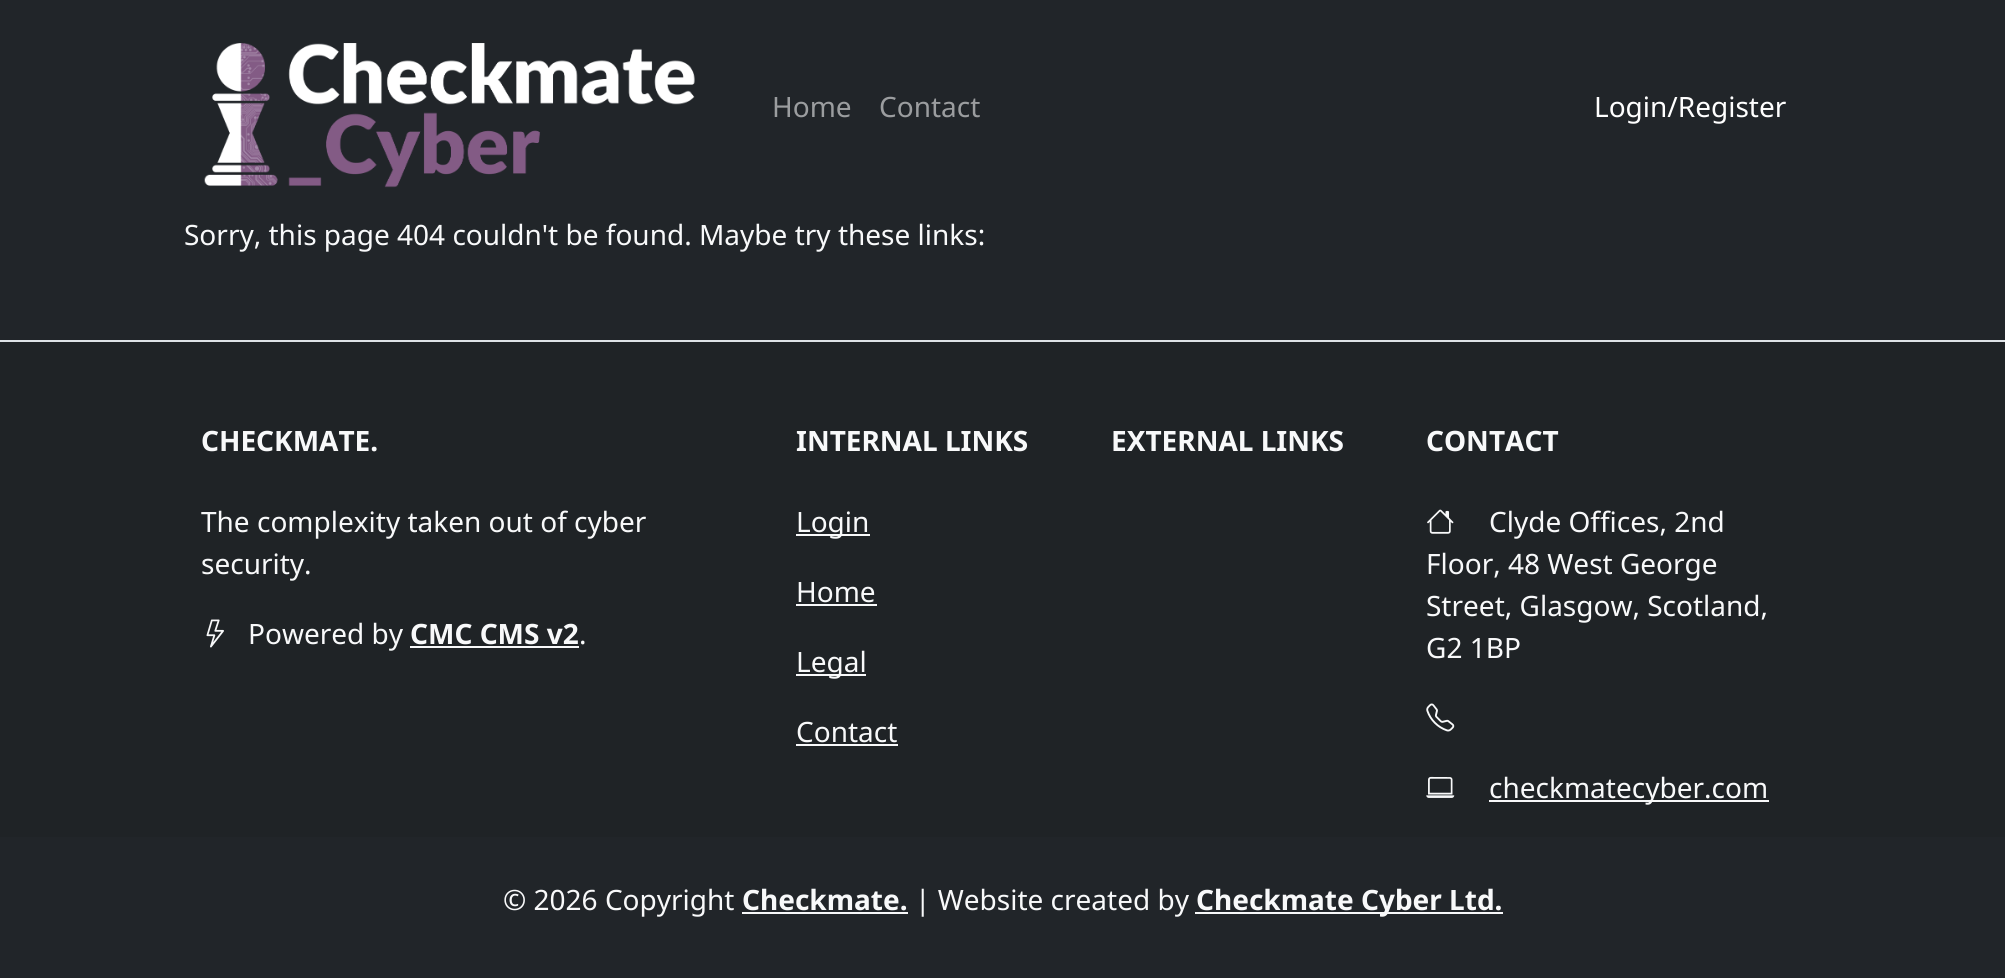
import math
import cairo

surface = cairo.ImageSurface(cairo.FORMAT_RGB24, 2005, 978)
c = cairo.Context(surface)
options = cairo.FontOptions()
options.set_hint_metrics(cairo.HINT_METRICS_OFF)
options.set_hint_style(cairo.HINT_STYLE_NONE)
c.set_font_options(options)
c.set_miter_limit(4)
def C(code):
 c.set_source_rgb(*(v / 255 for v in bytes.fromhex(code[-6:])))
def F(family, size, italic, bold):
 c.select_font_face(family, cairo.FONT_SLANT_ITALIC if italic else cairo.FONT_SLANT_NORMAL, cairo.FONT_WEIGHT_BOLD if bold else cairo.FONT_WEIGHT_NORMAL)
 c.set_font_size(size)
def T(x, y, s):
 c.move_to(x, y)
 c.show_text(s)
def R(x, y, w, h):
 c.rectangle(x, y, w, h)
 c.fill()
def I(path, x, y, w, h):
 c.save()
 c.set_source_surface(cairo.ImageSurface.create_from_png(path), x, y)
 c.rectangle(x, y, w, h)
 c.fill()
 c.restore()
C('212529')
c.paint()
I('1.png',204,43,491,145)
F('Noto Sans',28,0,0)
C('9b9d9f')
T(772,117,'Home')
T(879,117,'Contact')
C('ffffff')
T(1594,117,'Login/Register')
C('f8f9fa')
T(184,245,'Sorry, this page 404 couldn\'t be found. Maybe try these links:')
C('1f2326')
R(0,342,2005,495)
C('dee2e6')
R(0,340,2005,2)
F('Noto Sans',28,0,1)
C('f8f9fa')
T(201,451,'CHECKMATE.')
F('Noto Sans',28,0,0)
T(201,532,'The complexity taken out of cyber')
T(201,574,'security.')
I('2.png',206,619,18,29)
T(248,644,'Powered by')
F('Noto Sans',28,0,1)
T(410,644,'CMC CMS v2')
R(410,646,169,2)
F('Noto Sans',28,0,0)
T(579,644,'.')
F('Noto Sans',28,0,1)
T(796,451,'INTERNAL LINKS')
R(796,534,74,2)
F('Noto Sans',28,0,0)
T(796,532,'Login')
T(796,602,'Home')
R(796,604,81,2)
R(796,674,70,2)
T(796,672,'Legal')
T(796,742,'Contact')
R(796,744,102,2)
F('Noto Sans',28,0,1)
T(1111,451,'EXTERNAL LINKS')
T(1426,451,'CONTACT')
I('3.png',1427,509,27,25)
F('Noto Sans',28,0,0)
T(1489,532,'Clyde Offices, 2nd')
T(1426,574,'Floor, 48 West George')
T(1426,616,'Street, Glasgow, Scotland,')
T(1426,658,'G2 1BP')
I('4.png',1426,703,29,29)
I('5.png',1426,776,29,22)
R(1489,800,280,2)
T(1489,798,'checkmatecyber.com')
T(503,910,'© 2026 Copyright')
F('Noto Sans',28,0,1)
T(742,910,'Checkmate.')
R(742,912,166,2)
F('Noto Sans',28,0,0)
T(915,910,'| Website created by')
R(1195,912,308,2)
F('Noto Sans',28,0,1)
T(1196,910,'Checkmate Cyber Ltd.')
surface.write_to_png('o.png')
